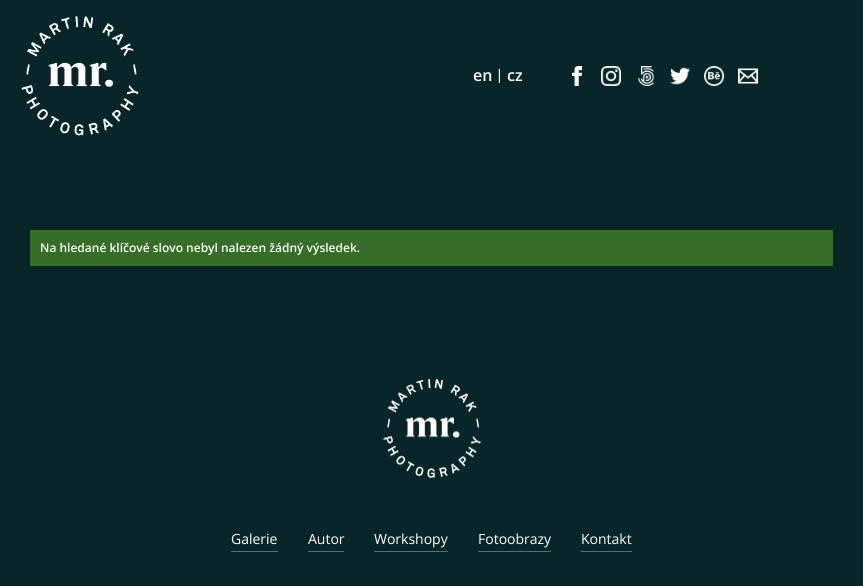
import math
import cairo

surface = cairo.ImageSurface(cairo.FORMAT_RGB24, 863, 586)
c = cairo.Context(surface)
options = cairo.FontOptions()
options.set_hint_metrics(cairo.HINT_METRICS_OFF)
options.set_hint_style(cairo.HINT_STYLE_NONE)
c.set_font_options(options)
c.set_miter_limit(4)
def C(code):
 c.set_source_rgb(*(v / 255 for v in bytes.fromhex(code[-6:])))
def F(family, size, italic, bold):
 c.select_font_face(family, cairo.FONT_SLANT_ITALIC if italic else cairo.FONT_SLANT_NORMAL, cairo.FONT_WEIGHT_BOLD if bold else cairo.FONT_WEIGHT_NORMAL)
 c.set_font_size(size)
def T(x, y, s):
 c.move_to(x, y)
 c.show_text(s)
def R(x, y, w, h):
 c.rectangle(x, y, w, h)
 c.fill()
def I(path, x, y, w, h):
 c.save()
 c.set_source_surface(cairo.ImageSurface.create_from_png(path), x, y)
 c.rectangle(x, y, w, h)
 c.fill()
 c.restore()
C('08262a')
c.paint()
I('1.png',21,16,118,120)
F('Open Sans SemiBold',16,0,0)
C('ffffff')
T(473,81,'en')
c.save()
c.rectangle(463,67,70,16)
c.clip()
F('Open Sans',16,0,0)
T(495,81,'|')
c.restore()
T(507,81,'cz')
I('2.png',572,66,10,20)
I('3.png',601,66,20,20)
I('4.png',637,66,18,20)
I('5.png',670,67,20,18)
I('6.png',704,66,20,20)
I('7.png',738,68,20,16)
C('356e27')
R(30,230,803,36)
F('Open Sans SemiBold',12,0,0)
C('ffffff')
T(40,252,'Na hledané klíčové slovo nebyl nalezen žádný výsledek.')
I('8.png',383,379,98,100)
F('Open Sans',14,0,0)
T(231,544,'Galerie')
C('546e73')
R(231,551,47,1)
C('ffffff')
T(308,544,'Autor')
C('546e73')
R(308,551,36,1)
C('ffffff')
T(374,544,'Workshopy')
C('546e73')
R(374,551,74,1)
C('ffffff')
T(478,544,'Fotoobrazy')
C('546e73')
R(478,551,73,1)
C('ffffff')
T(581,544,'Kontakt')
C('546e73')
R(581,551,51,1)
surface.write_to_png('o.png')
